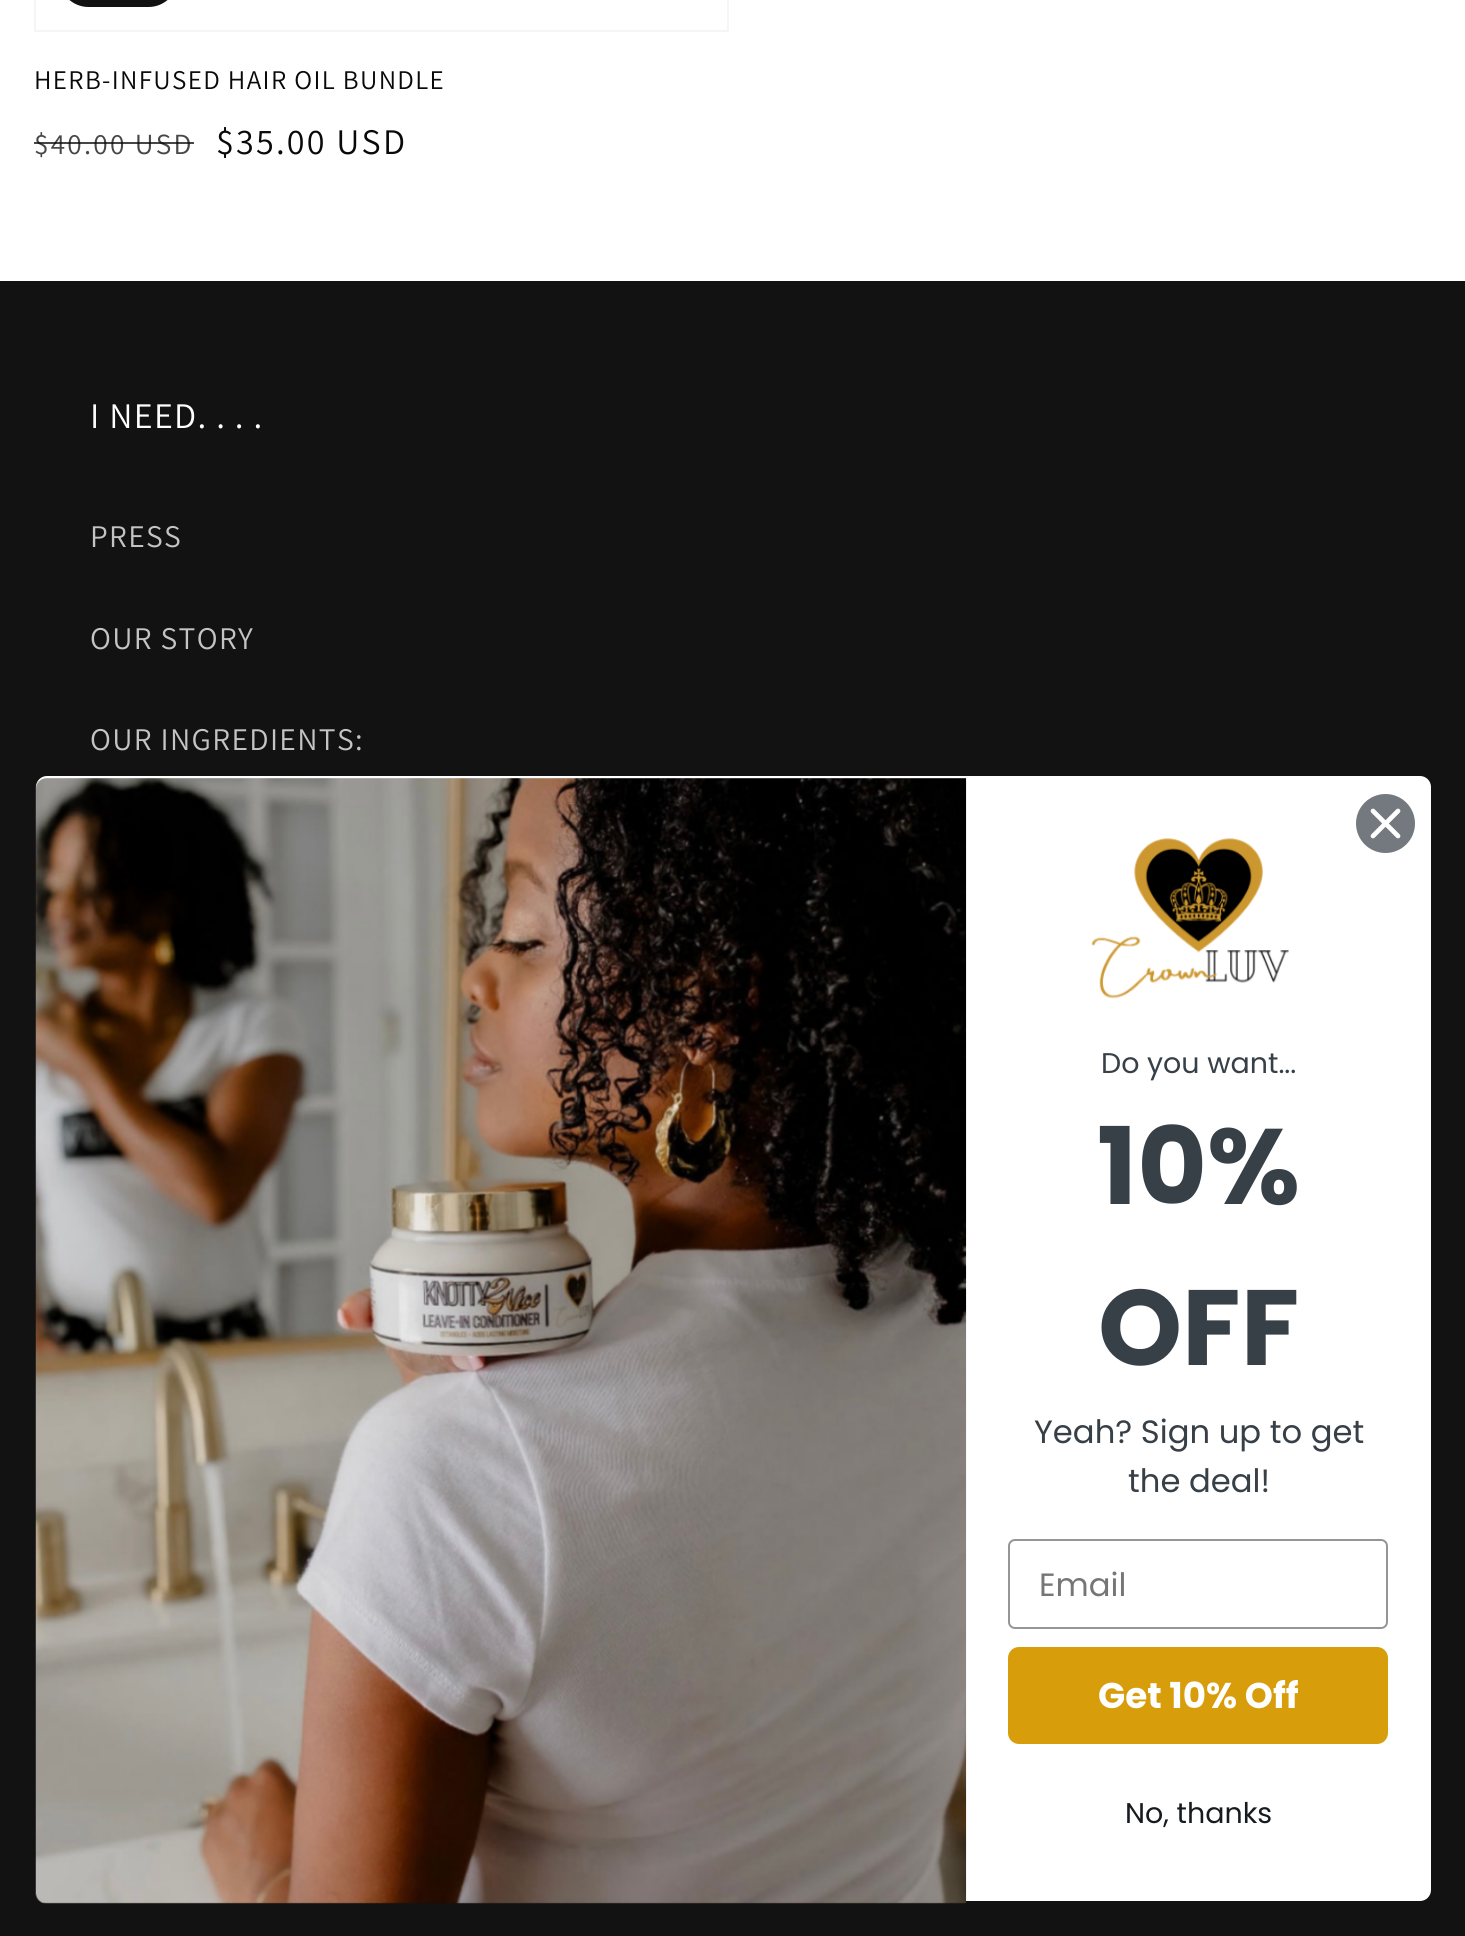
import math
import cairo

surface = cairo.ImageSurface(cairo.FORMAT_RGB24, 1465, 1936)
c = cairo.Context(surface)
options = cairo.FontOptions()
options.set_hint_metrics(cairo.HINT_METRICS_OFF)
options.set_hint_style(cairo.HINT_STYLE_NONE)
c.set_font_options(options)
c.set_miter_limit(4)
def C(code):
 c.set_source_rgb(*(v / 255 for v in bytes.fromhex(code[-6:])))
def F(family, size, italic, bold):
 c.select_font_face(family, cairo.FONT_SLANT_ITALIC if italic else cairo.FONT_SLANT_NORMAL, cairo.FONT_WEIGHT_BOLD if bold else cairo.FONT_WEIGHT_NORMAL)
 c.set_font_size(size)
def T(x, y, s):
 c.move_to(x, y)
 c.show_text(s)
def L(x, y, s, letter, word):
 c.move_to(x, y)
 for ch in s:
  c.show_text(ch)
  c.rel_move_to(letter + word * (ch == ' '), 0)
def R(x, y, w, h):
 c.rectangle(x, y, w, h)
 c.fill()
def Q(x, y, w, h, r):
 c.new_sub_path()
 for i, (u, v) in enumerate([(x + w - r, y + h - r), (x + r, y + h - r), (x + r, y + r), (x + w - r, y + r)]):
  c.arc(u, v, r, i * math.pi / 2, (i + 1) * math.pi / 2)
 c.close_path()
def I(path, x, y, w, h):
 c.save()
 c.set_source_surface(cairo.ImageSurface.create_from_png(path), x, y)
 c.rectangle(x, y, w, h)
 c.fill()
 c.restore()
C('ffffff')
c.paint()
c.rectangle(35,-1,693,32)
C('f5f5f5')
c.stroke()
C('121212')
Q(60,-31,117,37,28.5)
c.fill_preserve()
c.stroke()
F('Assistant',27,0,0)
C('0a0909')
L(34,89,'HERB-INFUSED HAIR OIL BUNDLE',1.35,0)
F('Assistant',29.25,0,0)
C('474747')
L(34,154,'$40.00 USD',2.25,0)
c.set_source_rgba(0.039,0.035,0.035,0.75)
R(34,142,160,2)
F('Assistant',36,0,0)
C('0a0909')
L(216,154,'$35.00 USD',2.25,0)
C('121212')
R(0,281,1465,1655)
C('ffffff')
L(90,428,'I NEED. . . .',1.35,0)
F('Assistant',31.5,0,0)
C('c4c4c4')
L(90,547,'PRESS',1.35,0)
L(90,649,'OUR STORY',1.35,0)
L(90,750,'OUR INGREDIENTS:',1.35,0)
C('ffffff')
Q(36,776,1395,1125,11)
c.fill()
C('73797e')
c.arc(1385.5,823.5,29.5,0,2 * math.pi)
c.fill()
c.new_path()
c.move_to(1373,811)
c.line_to(1398,836)
c.move_to(1373,836)
c.line_to(1398,811)
c.close_path()
C('ffffff')
c.set_line_width(4.7)
c.set_line_cap(cairo.LINE_CAP_ROUND)
c.set_line_join(cairo.LINE_JOIN_ROUND)
c.stroke()
I('1.png',35,778,932,1126)
I('2.png',1091,838,198,161)
F('Poppins',28.5,0,0)
C('373f47')
T(1101,1073,'Do you want...')
F('Poppins',107,0,1)
T(1097,1204,'10%')
T(1098,1365,'OFF')
F('Poppins',32.25,0,0)
T(1034,1443,'Yeah? Sign up to get')
T(1128,1492,'the deal!')
Q(1009,1540,378,88,6)
C('949596')
c.set_line_width(2)
c.set_line_cap(cairo.LINE_CAP_BUTT)
c.set_line_join(cairo.LINE_JOIN_MITER)
c.stroke()
C('767676')
T(1039,1596,'Email')
C('d89d0a')
Q(1008,1647,380,97,11)
c.fill()
F('Poppins',35.75,0,1)
C('ffffff')
T(1098,1708,'Get 10% Off')
F('Poppins',28.5,0,0)
C('161b20')
T(1125,1823,'No, thanks')
surface.write_to_png('o.png')
